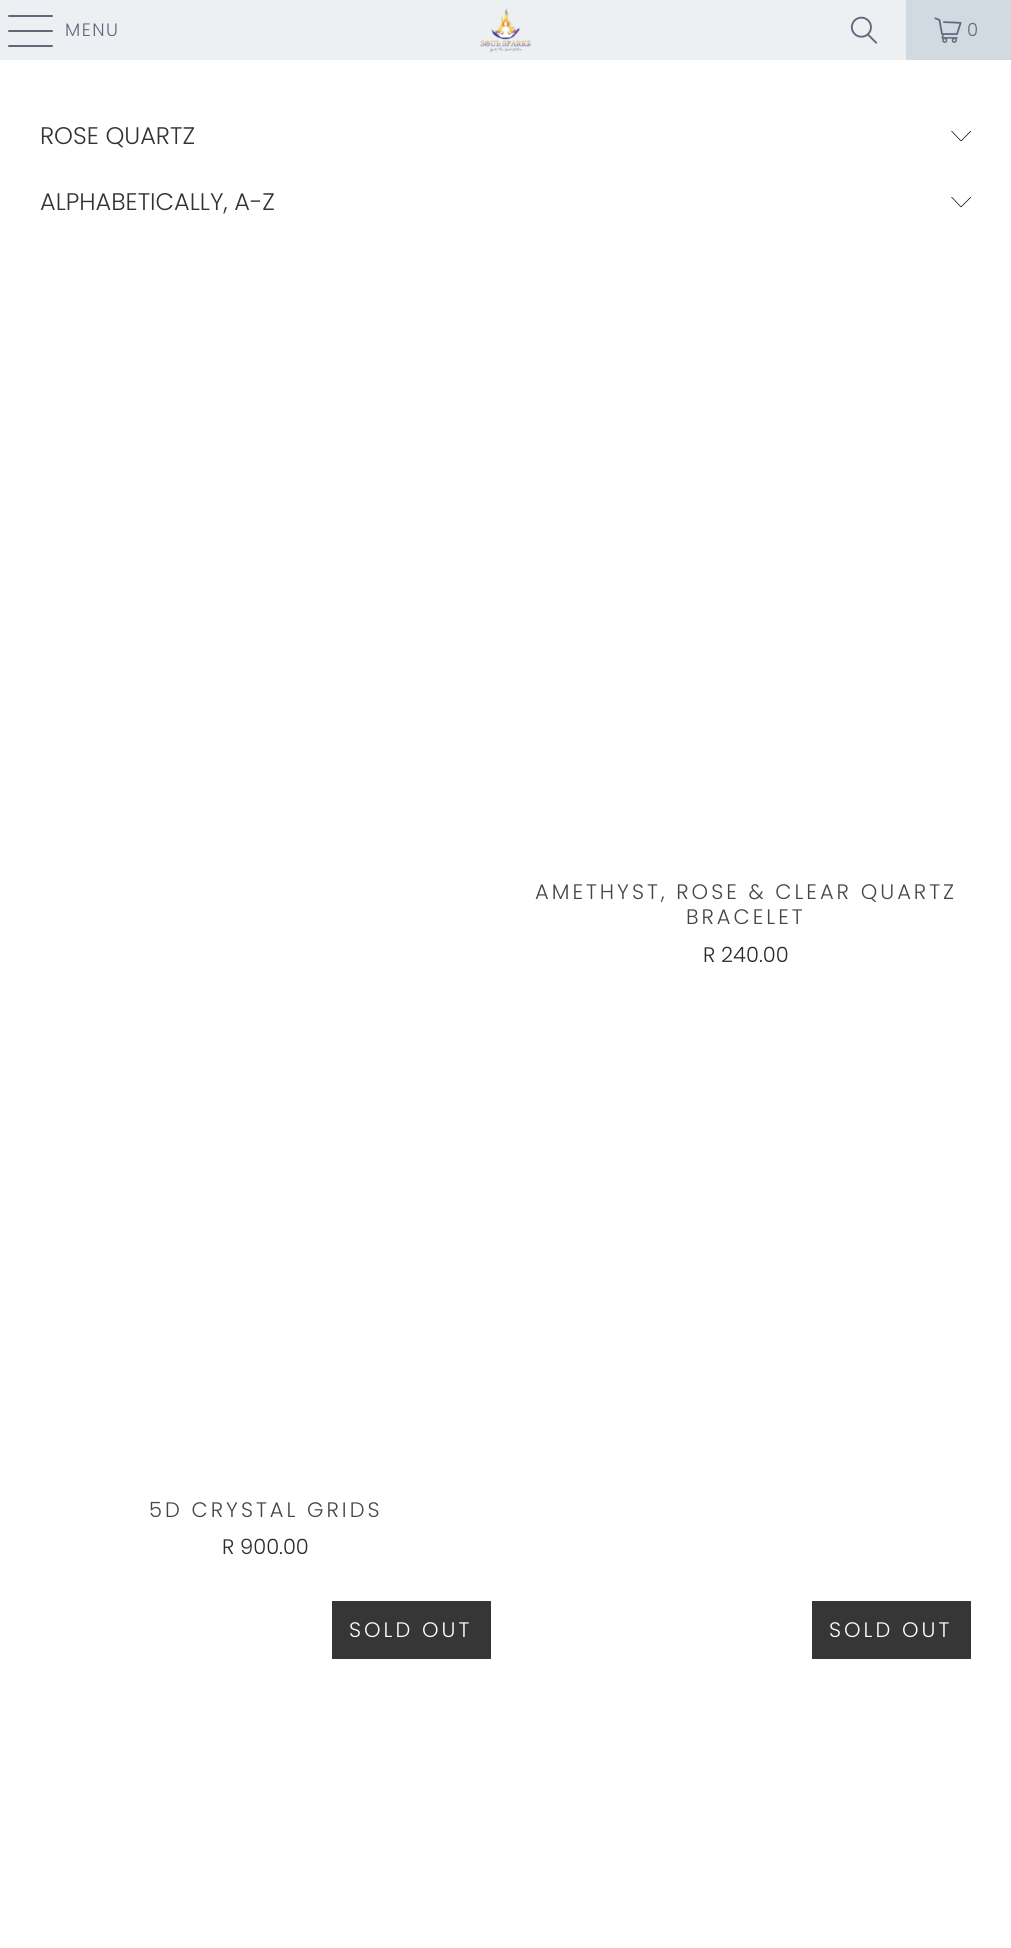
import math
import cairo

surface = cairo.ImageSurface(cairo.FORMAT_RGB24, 1011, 1948)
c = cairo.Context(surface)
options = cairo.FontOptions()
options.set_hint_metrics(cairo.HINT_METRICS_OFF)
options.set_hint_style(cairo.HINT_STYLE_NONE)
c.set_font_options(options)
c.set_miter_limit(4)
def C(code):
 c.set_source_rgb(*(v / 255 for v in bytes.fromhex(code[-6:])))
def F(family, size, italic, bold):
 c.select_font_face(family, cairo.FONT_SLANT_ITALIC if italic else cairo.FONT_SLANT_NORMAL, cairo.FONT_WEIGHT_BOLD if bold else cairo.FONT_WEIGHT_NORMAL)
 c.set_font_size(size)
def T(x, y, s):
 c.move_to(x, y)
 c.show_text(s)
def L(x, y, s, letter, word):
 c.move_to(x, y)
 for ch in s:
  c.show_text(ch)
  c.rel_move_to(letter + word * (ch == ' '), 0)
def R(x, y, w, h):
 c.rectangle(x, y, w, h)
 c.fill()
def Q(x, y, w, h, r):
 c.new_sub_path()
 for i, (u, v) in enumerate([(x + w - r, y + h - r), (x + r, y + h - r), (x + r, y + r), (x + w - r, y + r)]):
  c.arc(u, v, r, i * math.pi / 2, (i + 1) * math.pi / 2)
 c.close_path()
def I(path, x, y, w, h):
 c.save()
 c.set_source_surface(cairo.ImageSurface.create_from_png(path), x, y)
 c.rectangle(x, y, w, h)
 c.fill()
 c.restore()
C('ffffff')
c.paint()
C('ecf0f3')
R(0,0,906,60)
C('62677b')
Q(8,15,45,2,1)
c.fill()
Q(8,30,45,2,1)
c.fill()
Q(8,45,45,2,1)
c.fill()
F('Poppins Light',18,0,0)
L(65,36,'MENU',1.5,0)
I('1.png',480,8,51,45)
I('2.png',850,16,28,28)
C('d1d9e1')
R(906,0,105,60)
I('3.png',934,17,28,26)
C('62677b')
L(967,36,'0',1.5,0)
c.save()
c.rectangle(951,131,20,10)
c.clip()
C('000000')
c.new_path()
c.move_to(961,141.5)
c.line_to(951,131)
c.line_to(951.5,130.5)
c.line_to(961,140.5)
c.line_to(971,130.5)
c.line_to(971.5,131)
c.close_path()
c.fill()
c.restore()
F('Poppins Light',24,0,0)
C('333333')
T(40,144,'ROSE QUARTZ')
c.save()
c.rectangle(951,197,20,10)
c.clip()
C('000000')
c.new_path()
c.move_to(961,207.5)
c.line_to(951,197)
c.line_to(951.5,196.5)
c.line_to(961,206.5)
c.line_to(971,196.5)
c.line_to(971.5,197)
c.close_path()
c.fill()
c.restore()
T(40,210,'ALPHABETICALLY, A-Z')
F('Poppins Light',21,0,0)
C('454545')
L(535,899,'AMETHYST, ROSE & CLEAR QUARTZ',3,0)
L(686,924,'BRACELET',3,0)
C('2b2a2a')
T(703,962,'R 240.00')
C('454545')
L(149,1517,'5D CRYSTAL GRIDS',3,0)
C('2b2a2a')
T(222,1554,'R 900.00')
C('363636')
R(332,1601,159,58)
C('ffffff')
L(349,1637,'SOLD OUT',3,0)
C('363636')
R(812,1601,159,58)
C('ffffff')
L(829,1637,'SOLD OUT',3,0)
surface.write_to_png('o.png')
